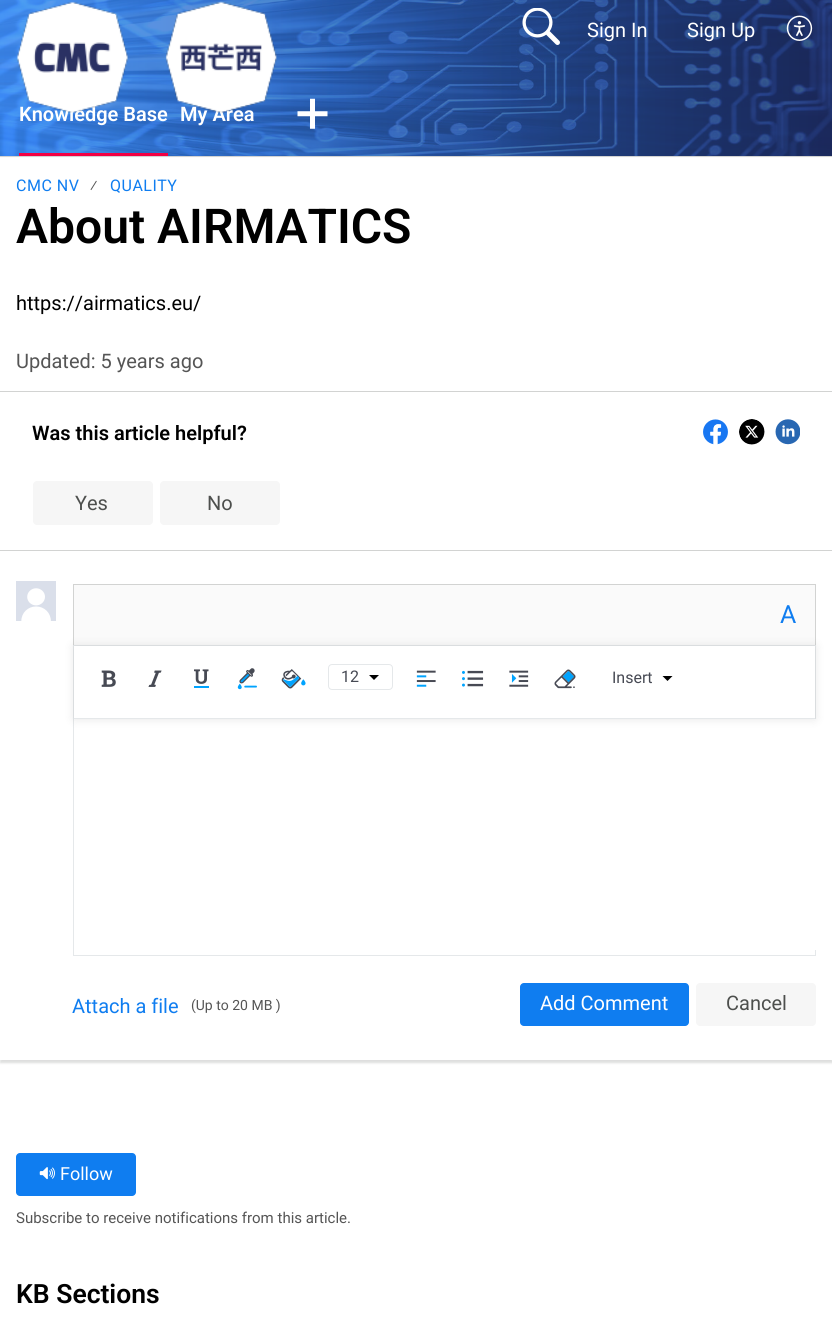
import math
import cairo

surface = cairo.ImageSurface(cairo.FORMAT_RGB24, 832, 1321)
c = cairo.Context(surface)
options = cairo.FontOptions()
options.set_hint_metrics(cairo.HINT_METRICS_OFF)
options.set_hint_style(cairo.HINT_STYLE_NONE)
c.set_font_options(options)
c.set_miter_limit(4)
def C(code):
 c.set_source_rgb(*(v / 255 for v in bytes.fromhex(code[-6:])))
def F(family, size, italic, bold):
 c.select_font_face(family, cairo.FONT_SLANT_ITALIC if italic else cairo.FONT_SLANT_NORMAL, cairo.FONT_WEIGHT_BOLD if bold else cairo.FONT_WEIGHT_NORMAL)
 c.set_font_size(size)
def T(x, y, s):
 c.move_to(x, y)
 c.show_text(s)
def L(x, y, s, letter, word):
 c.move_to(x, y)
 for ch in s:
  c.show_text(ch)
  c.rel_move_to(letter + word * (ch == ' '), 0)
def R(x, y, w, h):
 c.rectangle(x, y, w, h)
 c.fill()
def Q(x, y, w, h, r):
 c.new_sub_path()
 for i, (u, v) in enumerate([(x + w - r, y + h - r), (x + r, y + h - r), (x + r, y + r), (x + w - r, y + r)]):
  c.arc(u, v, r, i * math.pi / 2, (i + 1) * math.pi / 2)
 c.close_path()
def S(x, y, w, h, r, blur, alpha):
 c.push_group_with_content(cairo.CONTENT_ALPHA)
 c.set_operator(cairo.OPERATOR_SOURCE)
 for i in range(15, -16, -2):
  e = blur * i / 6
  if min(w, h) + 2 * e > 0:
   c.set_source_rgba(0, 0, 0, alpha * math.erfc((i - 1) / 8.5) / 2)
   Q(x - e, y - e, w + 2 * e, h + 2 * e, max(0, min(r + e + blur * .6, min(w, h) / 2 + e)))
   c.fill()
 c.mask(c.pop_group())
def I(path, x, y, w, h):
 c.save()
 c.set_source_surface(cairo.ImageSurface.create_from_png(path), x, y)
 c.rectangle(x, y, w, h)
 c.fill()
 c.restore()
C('ffffff')
c.paint()
gradient = cairo.LinearGradient(0,78,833,78)
gradient.add_color_stop_rgba(0,0.2,0.525,0.953,1)
gradient.add_color_stop_rgba(1,0.125,0.184,0.4,1)
c.set_source(gradient)
R(0,0,832,156)
I('1.png',0,0,832,156)
F('Roboto SemiBold',20,0,0)
C('ffffff')
T(19,121,'Knowledge Base')
T(180,121,'My Area')
I('2.png',16,1,261,112)
I('3.png',522,8,38,37)
F('Roboto',20,0,0)
T(587,37,'Sign In')
T(687,37,'Sign Up')
I('4.png',786,15,27,26)
C('f20043')
R(19,153,149,3)
I('5.png',297,98,31,31)
C('202320')
S(0,159,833,904,0,1,.15)
C('ffffff')
R(0,158,832,902)
C('d2d3d2')
R(0,156,832,1)
F('Roboto',16,0,0)
C('0f7df0')
L(16,191,'CMC NV',.5,0)
C('555555')
L(90,191,'⁄',.5,0)
C('0f7df0')
L(110,191,'QUALITY',.5,0)
F('Roboto SemiBold',48,0,0)
C('000000')
T(16,243,'About AIRMATICS')
F('Roboto',20,0,0)
T(16,310,'https://airmatics.eu/')
C('555555')
T(16,368,'Updated: 5 years ago')
C('d2d3d2')
R(0,391,832,1)
F('Roboto SemiBold',20,0,0)
C('000000')
T(32,440,'Was this article helpful?')
C('f6f6f6')
Q(33,481,120,44,4)
c.fill()
F('Roboto',20,0,0)
C('4d4f4d')
T(75,510,'Yes')
C('f6f6f6')
Q(160,481,120,44,4)
c.fill()
C('4d4f4d')
T(207,510,'No')
I('6.png',703,419,25,26)
I('7.png',739,419,26,26)
I('8.png',775,419,25,26)
C('d2d3d2')
R(0,550,832,1)
I('9.png',16,581,40,40)
R(73,584,743,1)
R(815,584,1,61)
R(73,584,1,61)
C('fafafa')
R(74,585,741,60)
F('Roboto',25,0,0)
C('0f7df0')
T(780,623,'A')
c.rectangle(73.5,645.5,742,310)
C('e5e8ea')
c.set_line_width(1)
c.stroke()
C('ffffff')
R(815,719,1,231)
c.save()
c.set_fill_rule(cairo.FILL_RULE_EVEN_ODD)
c.new_path()
c.move_to(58,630)
c.line_to(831,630)
c.line_to(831,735)
c.line_to(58,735)
c.close_path()
c.move_to(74,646)
c.line_to(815,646)
c.line_to(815,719)
c.line_to(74,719)
c.close_path()
c.clip()
C('000000')
S(74,646,741,73,0,5,.1)
c.restore()
C('e5e8ea')
R(74,718,741,1)
I('10.png',101,670,15,17)
I('11.png',148,670,14,17)
I('12.png',194,669,15,19)
I('13.png',237,668,20,22)
I('14.png',281,669,25,20)
Q(328.5,664.5,64,25,3.5)
c.stroke()
F('Roboto',16,0,0)
C('474a54')
T(341,682,'12')
C('000000')
c.new_path()
c.move_to(369,675)
c.line_to(379,675)
c.line_to(374,680)
c.close_path()
c.fill()
I('15.png',416,670,20,17)
I('16.png',462,670,22,17)
I('17.png',509,670,20,17)
I('18.png',554,669,22,20)
C('474a54')
T(612,683,'Insert')
C('000000')
c.new_path()
c.move_to(662.5,676)
c.line_to(672.5,676)
c.line_to(667.5,681)
c.close_path()
c.fill()
F('Roboto',20,0,0)
C('0f7df0')
T(72,1013,'Attach a file')
F('Roboto',14,0,0)
C('555555')
T(191,1010,'(Up to 20 MB )')
C('0f7df0')
Q(520,983,169,43,4)
c.fill()
F('Roboto',20,0,0)
C('ffffff')
T(540,1010,'Add Comment')
C('f6f6f6')
Q(696,983,120,43,4)
c.fill()
C('4d4f4d')
T(726,1010,'Cancel')
C('0f7df0')
Q(16,1153,120,43,4)
c.fill()
I('19.png',39,1167,16,13)
F('Roboto',18,0,0)
C('ffffff')
T(60,1180,'Follow')
F('Roboto',15,0,0)
C('555555')
T(16,1223,'Subscribe to receive notifications from this article.')
F('Roboto SemiBold',26.5,0,0)
C('000000')
T(16,1303,'KB Sections')
surface.write_to_png('o.png')
